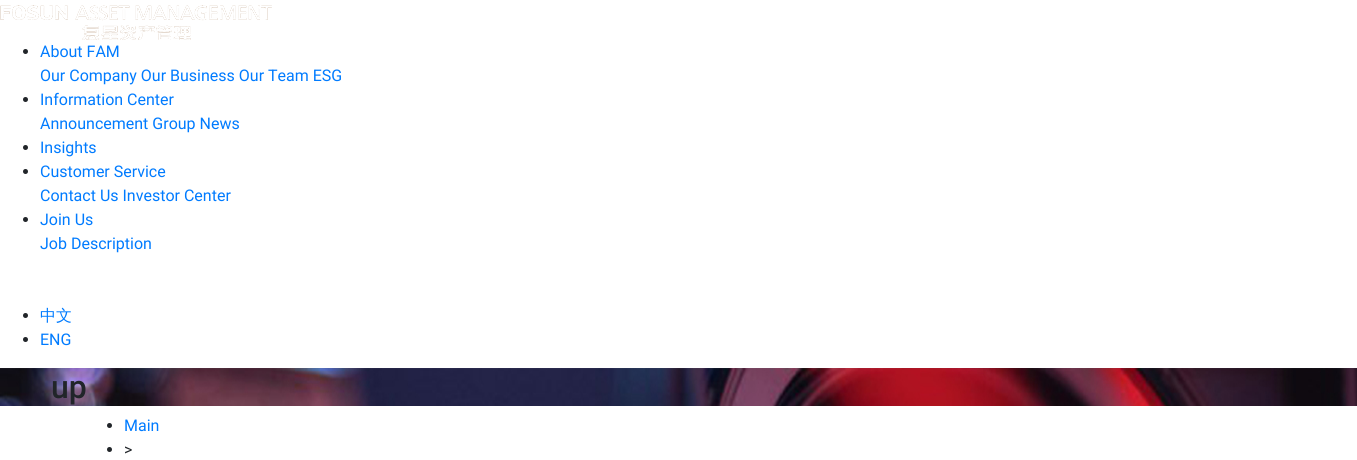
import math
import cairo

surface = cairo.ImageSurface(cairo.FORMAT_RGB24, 1357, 460)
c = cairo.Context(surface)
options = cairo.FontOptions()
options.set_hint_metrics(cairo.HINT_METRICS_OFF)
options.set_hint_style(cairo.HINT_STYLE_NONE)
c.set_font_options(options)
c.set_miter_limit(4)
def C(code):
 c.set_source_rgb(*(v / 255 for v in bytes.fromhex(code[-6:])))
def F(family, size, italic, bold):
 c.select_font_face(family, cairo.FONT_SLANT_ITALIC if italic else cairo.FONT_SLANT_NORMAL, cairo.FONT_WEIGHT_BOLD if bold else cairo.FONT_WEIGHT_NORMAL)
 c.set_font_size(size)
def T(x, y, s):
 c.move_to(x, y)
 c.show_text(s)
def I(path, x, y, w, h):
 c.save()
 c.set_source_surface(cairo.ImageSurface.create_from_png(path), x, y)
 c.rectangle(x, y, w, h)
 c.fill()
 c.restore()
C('ffffff')
c.paint()
I('1.png',0,5,272,35)
C('212529')
c.arc(25.5,51.5,2.5,0,2 * math.pi)
c.fill()
F('Roboto',16,0,0)
C('007bff')
T(40,57,'About FAM')
T(40,81,'Our Company Our Business Our Team ESG')
C('212529')
c.new_path()
c.arc(25.5,99.5,2.5,0,2 * math.pi)
c.fill()
C('007bff')
T(40,105,'Information Center')
T(40,129,'Announcement Group News')
C('212529')
c.new_path()
c.arc(25.5,147.5,2.5,0,2 * math.pi)
c.fill()
C('007bff')
T(40,153,'Insights')
C('212529')
c.new_path()
c.arc(25.5,171.5,2.5,0,2 * math.pi)
c.fill()
C('007bff')
T(40,177,'Customer Service')
T(40,201,'Contact Us Investor Center')
C('212529')
c.new_path()
c.arc(25.5,219.5,2.5,0,2 * math.pi)
c.fill()
C('007bff')
T(40,225,'Join Us')
T(40,249,'Job Description')
C('212529')
c.new_path()
c.arc(25.5,315.5,2.5,0,2 * math.pi)
c.fill()
F('WenQuanYi Zen Hei Medium',16,0,0)
C('007bff')
T(40,321,'中文')
C('212529')
c.new_path()
c.arc(25.5,339.5,2.5,0,2 * math.pi)
c.fill()
F('Roboto',16,0,0)
C('007bff')
T(40,345,'ENG')
I('2.png',0,368,1357,38)
F('Roboto Medium',32,0,0)
C('212529')
T(51,398,'up')
c.new_path()
c.arc(109.5,425.5,2.5,0,2 * math.pi)
c.fill()
F('Roboto',16,0,0)
C('007bff')
T(124,431,'Main')
C('212529')
c.new_path()
c.arc(109.5,449.5,2.5,0,2 * math.pi)
c.fill()
T(124,455,'>')
surface.write_to_png('o.png')
